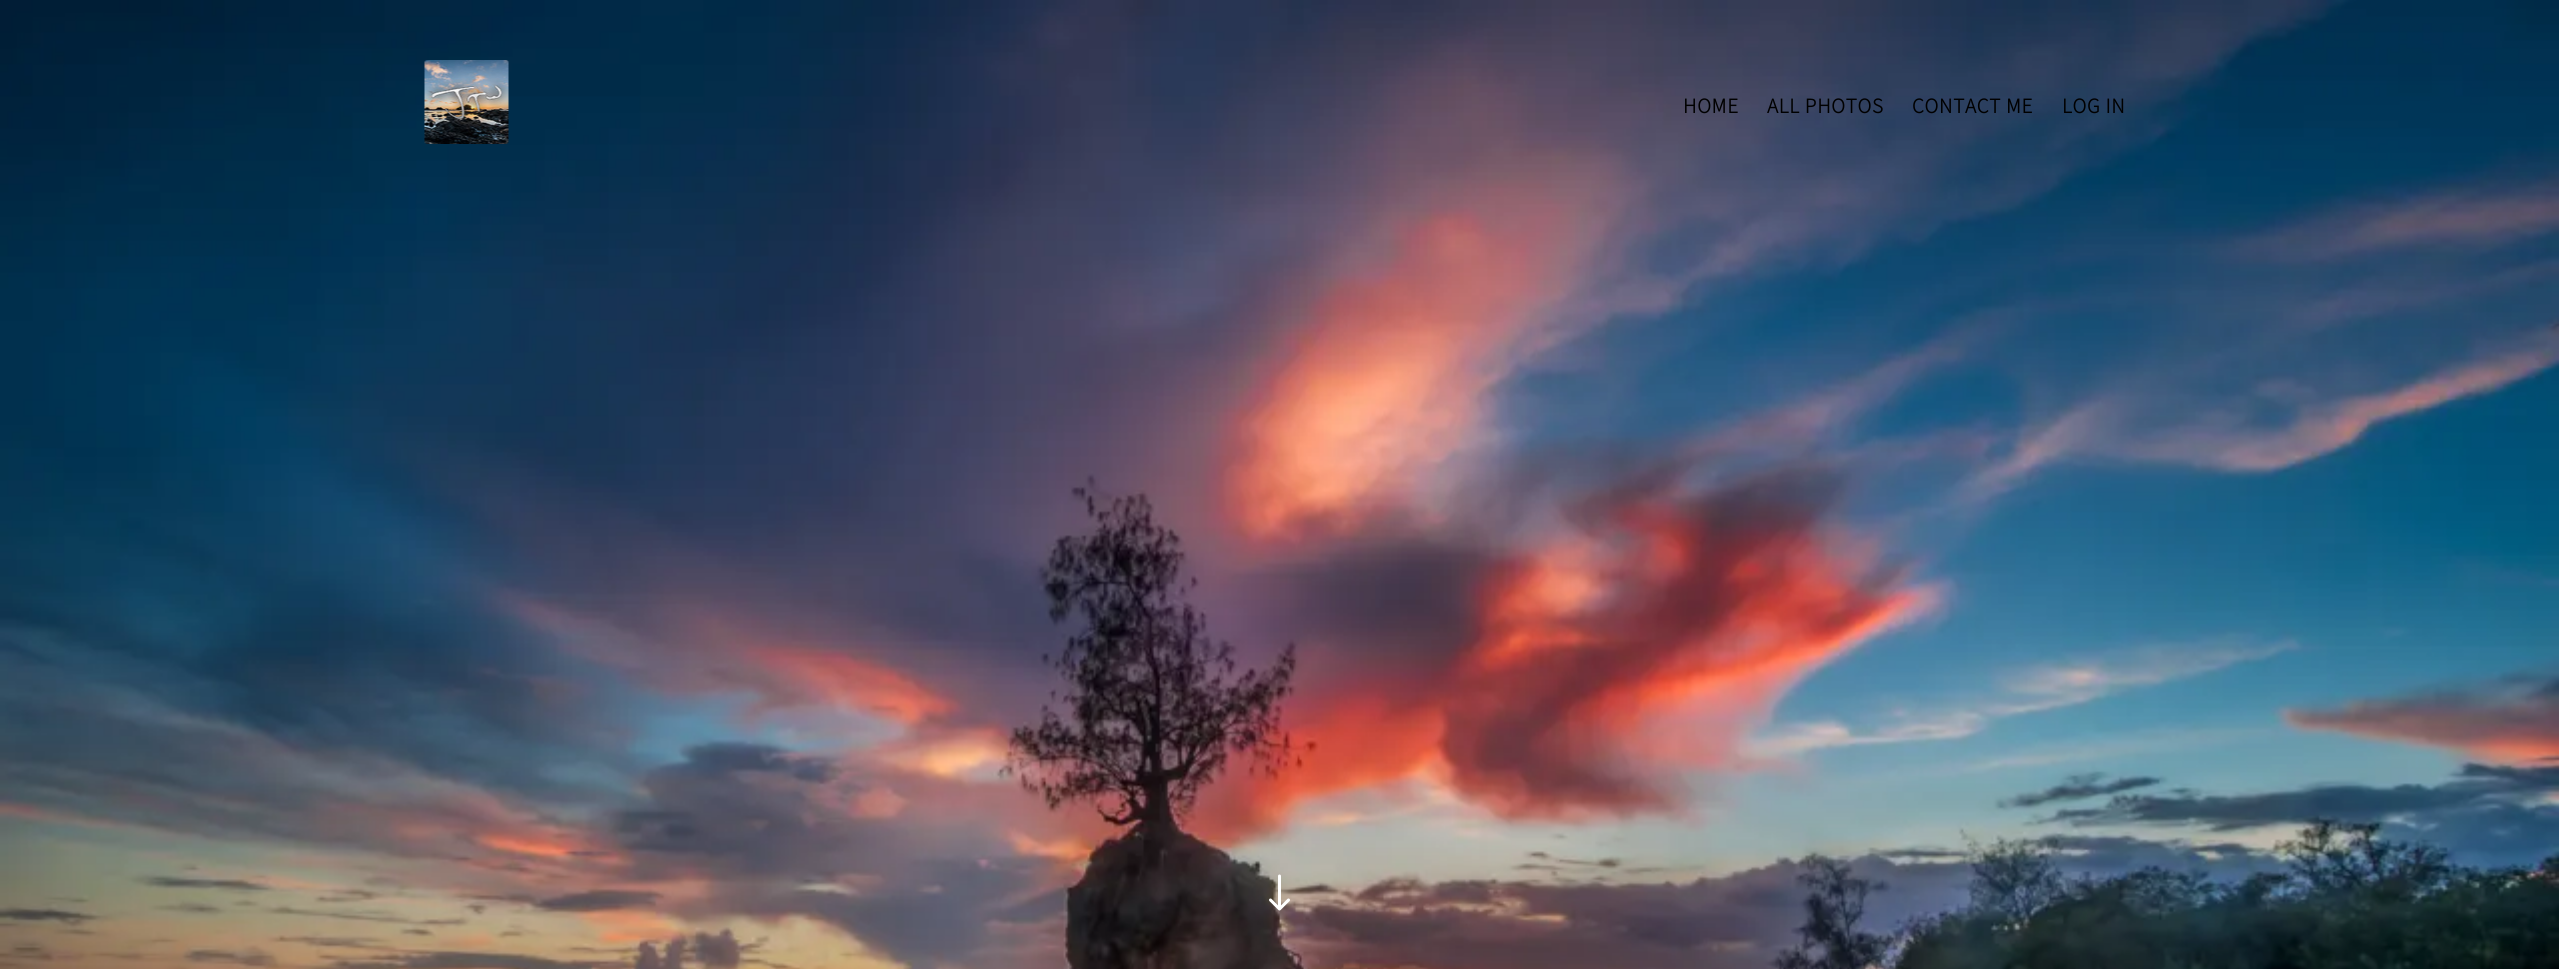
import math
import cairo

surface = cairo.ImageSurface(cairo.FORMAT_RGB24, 2559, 969)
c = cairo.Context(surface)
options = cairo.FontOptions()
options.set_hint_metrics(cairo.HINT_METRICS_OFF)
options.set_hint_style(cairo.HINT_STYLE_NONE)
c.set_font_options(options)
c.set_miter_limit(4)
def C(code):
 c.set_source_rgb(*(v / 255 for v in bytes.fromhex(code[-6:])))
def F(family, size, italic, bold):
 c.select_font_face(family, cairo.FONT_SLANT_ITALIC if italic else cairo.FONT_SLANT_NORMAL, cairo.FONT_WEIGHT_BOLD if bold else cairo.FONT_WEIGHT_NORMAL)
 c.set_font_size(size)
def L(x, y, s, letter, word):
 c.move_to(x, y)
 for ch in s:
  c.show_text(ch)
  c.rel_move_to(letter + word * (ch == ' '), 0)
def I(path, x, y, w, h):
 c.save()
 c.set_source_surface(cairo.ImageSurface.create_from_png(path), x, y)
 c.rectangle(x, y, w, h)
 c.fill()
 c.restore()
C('ffffff')
c.paint()
I('1.png',0,0,2559,969)
I('2.png',1269,874,21,37)
I('3.png',424,60,85,84)
F('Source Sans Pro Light',21,0,1)
C('000000')
L(1683,113,'HOME',.75,0)
L(1767,113,'ALL PHOTOS',.75,0)
L(1912,113,'CONTACT ME',.75,0)
L(2062,113,'LOG IN',.75,0)
surface.write_to_png('o.png')
